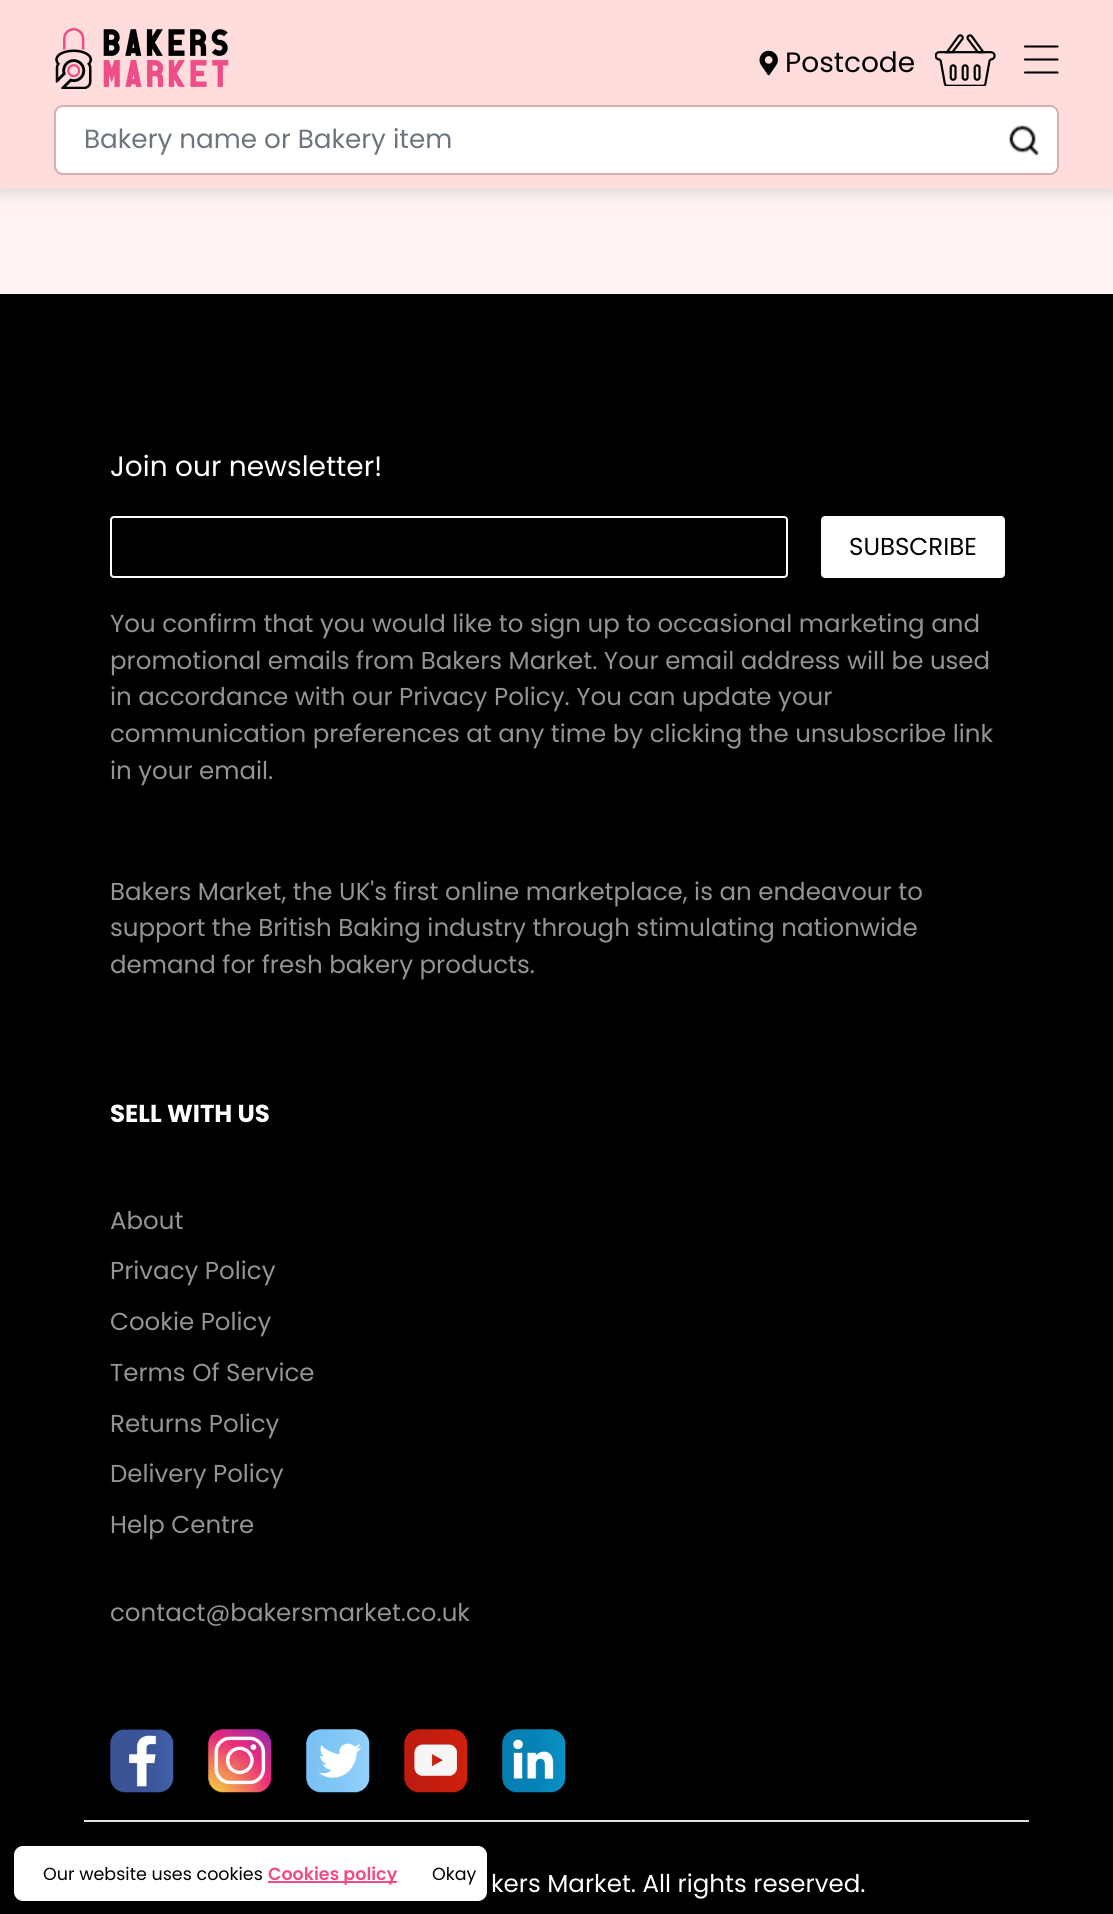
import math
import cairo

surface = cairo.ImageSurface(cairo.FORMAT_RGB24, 1113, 1914)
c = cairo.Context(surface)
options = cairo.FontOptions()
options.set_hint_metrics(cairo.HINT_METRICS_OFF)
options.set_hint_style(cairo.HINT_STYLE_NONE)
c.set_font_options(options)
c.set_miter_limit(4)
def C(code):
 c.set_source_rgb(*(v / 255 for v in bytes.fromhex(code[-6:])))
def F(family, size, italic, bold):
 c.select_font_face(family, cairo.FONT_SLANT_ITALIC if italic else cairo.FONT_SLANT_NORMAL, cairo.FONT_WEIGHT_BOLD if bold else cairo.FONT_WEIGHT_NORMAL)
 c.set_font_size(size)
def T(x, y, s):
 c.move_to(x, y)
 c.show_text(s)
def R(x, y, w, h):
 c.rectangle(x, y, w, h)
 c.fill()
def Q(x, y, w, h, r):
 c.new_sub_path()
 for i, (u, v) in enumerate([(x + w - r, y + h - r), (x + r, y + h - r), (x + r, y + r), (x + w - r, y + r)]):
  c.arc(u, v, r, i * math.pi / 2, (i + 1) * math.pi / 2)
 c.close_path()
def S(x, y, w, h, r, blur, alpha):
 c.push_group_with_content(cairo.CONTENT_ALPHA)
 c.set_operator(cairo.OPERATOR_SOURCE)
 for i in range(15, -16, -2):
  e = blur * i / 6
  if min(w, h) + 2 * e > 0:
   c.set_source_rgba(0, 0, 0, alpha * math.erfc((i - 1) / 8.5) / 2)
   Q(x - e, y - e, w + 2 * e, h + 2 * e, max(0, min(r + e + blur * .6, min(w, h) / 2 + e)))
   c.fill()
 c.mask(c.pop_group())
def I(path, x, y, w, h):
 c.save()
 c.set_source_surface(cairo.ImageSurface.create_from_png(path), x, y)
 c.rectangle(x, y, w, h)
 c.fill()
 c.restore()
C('000000')
c.paint()
C('fff2f2')
R(0,189,1113,105)
C('cccccc')
S(0,0,1113,189,0,9,1)
C('ffdddd')
R(0,0,1113,189)
I('1.png',55,28,174,61)
I('2.png',759,50,19,26)
F('Poppins',28,0,0)
C('000000')
T(785,72,'Postcode')
I('3.png',935,34,61,52)
c.new_path()
c.move_to(1025,46.5)
c.line_to(1057.5,46.5)
c.move_to(1025,59.5)
c.line_to(1057.5,59.5)
c.move_to(1025,72.5)
c.line_to(1057.5,72.5)
c.set_line_width(2.1)
c.set_line_cap(cairo.LINE_CAP_ROUND)
c.stroke()
C('ffffff')
Q(55,106,1003,68,8)
c.fill_preserve()
C('d9aeae')
c.set_line_width(2)
c.set_line_cap(cairo.LINE_CAP_BUTT)
c.stroke()
F('Poppins',26.25,0,0)
C('6c757d')
T(84,148,'Bakery name or Bakery item')
I('4.png',1009,125,30,31)
F('Poppins',28,0,0)
C('ffffff')
T(110,476,'Join our newsletter!')
Q(111,517,676,60,3)
c.stroke()
Q(822,517,182,60,3)
c.fill_preserve()
c.stroke()
F('Poppins',24.5,0,0)
C('000000')
T(849,555,'SUBSCRIBE')
C('949494')
T(110,632,'You confirm that you would like to sign up to occasional marketing and')
T(110,669,'promotional emails from Bakers Market. Your email address will be used')
T(110,705,'in accordance with our Privacy Policy. You can update your')
T(110,742,'communication preferences at any time by clicking the unsubscribe link')
T(110,779,'in your email.')
T(110,900,'Bakers Market, the UK\'s first online marketplace, is an endeavour to')
T(110,936,'support the British Baking industry through stimulating nationwide')
T(110,973,'demand for fresh bakery products.')
F('Poppins',24.5,0,1)
C('ffffff')
T(110,1122,'SELL WITH US')
F('Poppins',24.5,0,0)
C('949494')
T(110,1229,'About')
T(110,1279,'Privacy Policy')
T(110,1330,'Cookie Policy')
T(110,1381,'Terms Of Service')
T(110,1432,'Returns Policy')
T(110,1482,'Delivery Policy')
T(110,1533,'Help Centre')
T(110,1621,'contact@bakersmarket.co.uk')
I('5.png',110,1729,64,64)
I('6.png',208,1729,64,64)
I('7.png',306,1729,64,64)
I('8.png',404,1729,64,64)
I('9.png',502,1729,64,64)
C('dee2e6')
R(84,1820,945,2)
C('ffffff')
T(491,1892,'kers Market. All rights reserved.')
Q(14,1846,473,55,9)
c.fill()
F('Poppins',17.5,0,0)
C('000000')
T(43,1880,'Our website uses cookies')
C('ee4d87')
R(268,1881,129,2)
F('Poppins SemiBold',17.5,0,0)
T(268,1880,'Cookies policy')
F('Poppins',17.5,0,0)
C('000000')
T(432,1880,'Okay')
surface.write_to_png('o.png')
